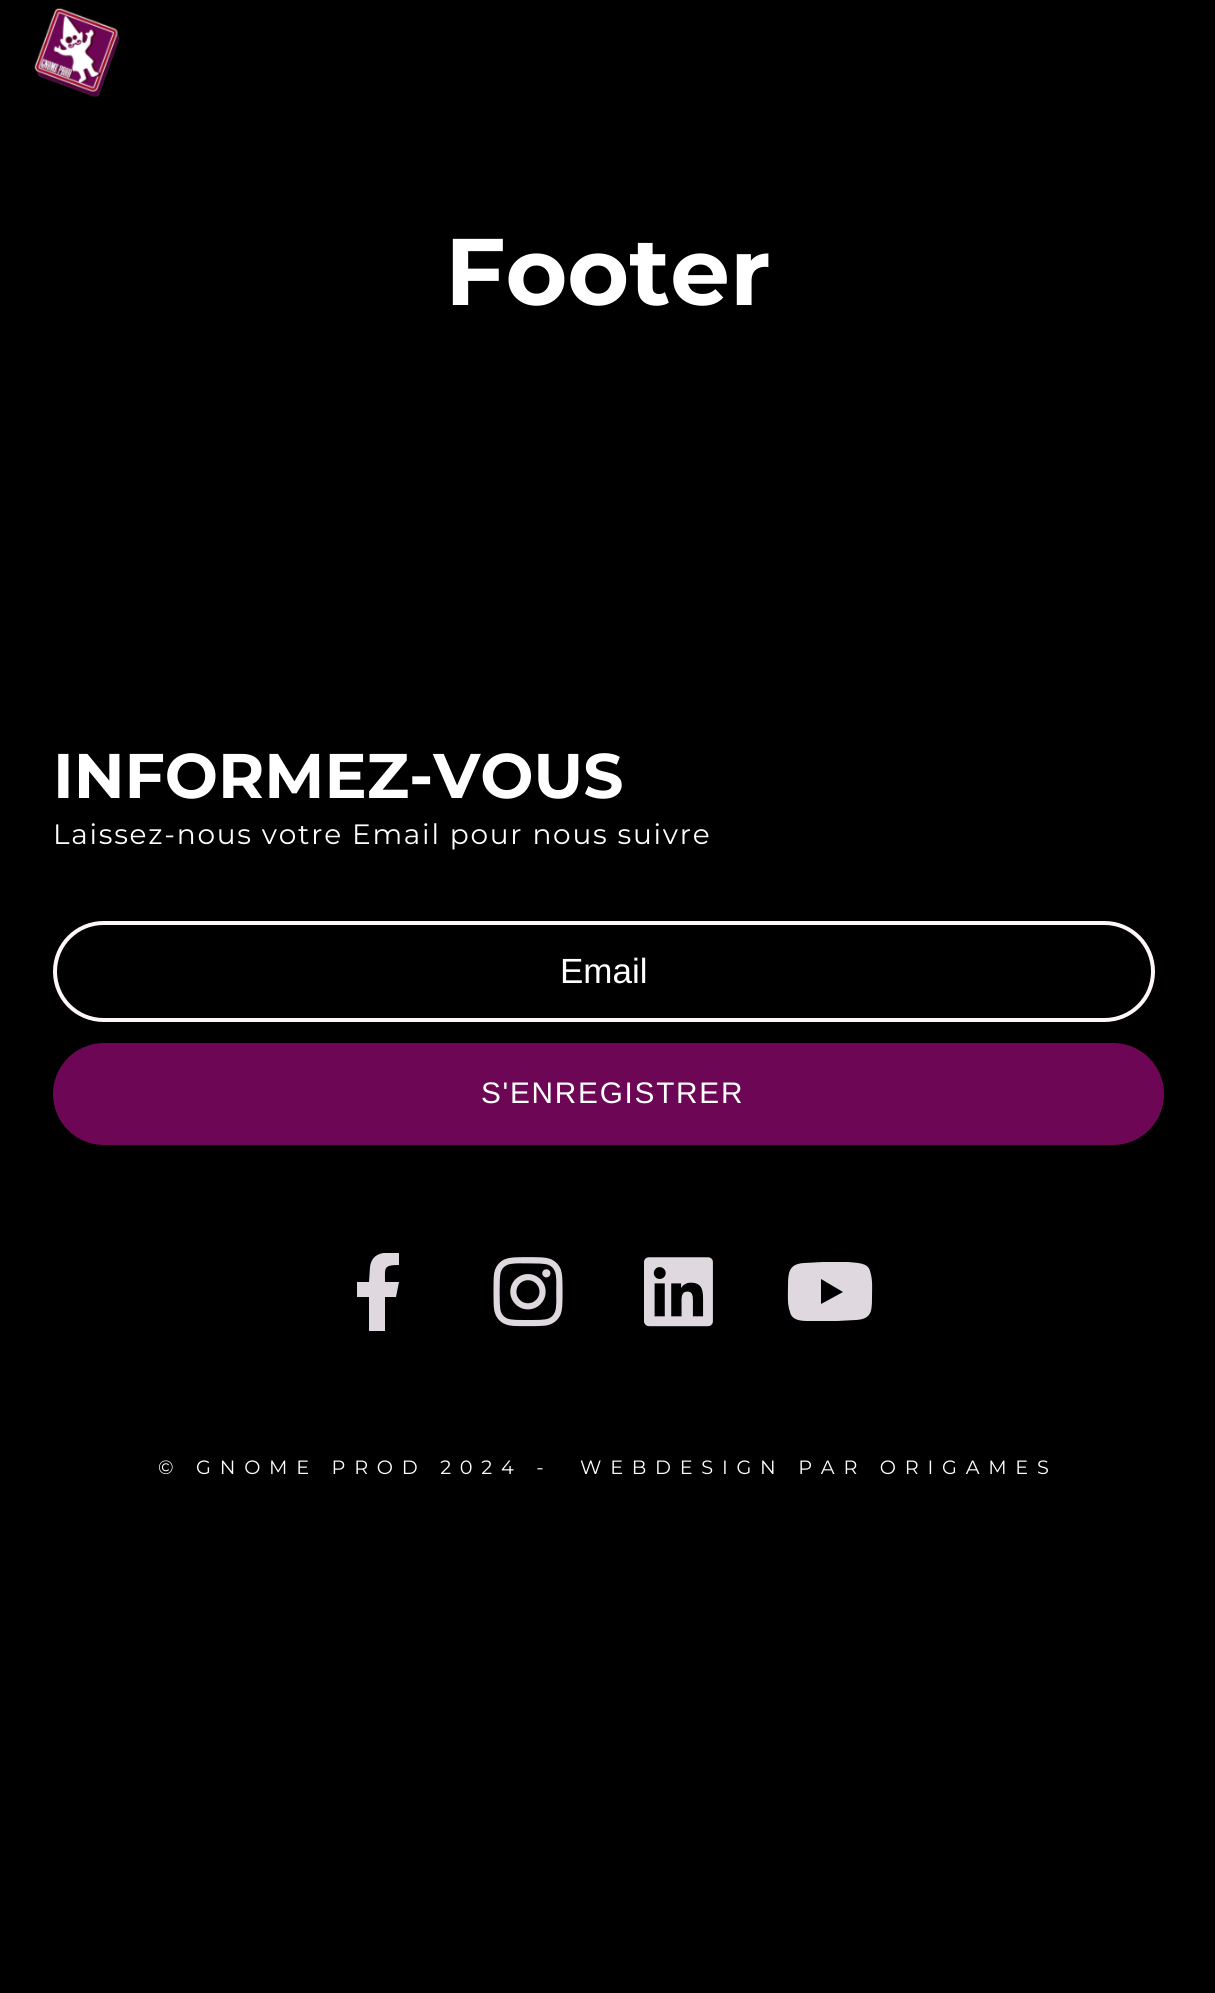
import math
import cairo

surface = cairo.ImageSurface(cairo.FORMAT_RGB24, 1215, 1993)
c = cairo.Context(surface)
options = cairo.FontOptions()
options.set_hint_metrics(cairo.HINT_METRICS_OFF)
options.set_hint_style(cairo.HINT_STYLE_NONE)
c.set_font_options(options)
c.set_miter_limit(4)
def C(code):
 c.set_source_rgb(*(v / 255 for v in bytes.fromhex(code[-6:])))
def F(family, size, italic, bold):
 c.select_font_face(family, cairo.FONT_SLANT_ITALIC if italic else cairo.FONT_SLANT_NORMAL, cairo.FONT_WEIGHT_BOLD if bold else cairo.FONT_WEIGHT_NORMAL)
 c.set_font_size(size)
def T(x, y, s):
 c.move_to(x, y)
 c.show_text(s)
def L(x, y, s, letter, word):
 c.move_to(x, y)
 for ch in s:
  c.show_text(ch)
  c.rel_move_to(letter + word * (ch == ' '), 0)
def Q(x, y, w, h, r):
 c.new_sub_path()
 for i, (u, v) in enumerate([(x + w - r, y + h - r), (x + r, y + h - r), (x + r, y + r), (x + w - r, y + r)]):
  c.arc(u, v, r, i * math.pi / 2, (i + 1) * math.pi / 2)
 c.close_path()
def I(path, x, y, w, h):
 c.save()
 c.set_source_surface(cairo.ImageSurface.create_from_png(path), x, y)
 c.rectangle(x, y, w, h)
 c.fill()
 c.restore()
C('000000')
c.paint()
I('1.png',34,8,86,89)
F('Montserrat',94.5,0,1)
C('ffffff')
T(445,305,'Footer')
F('Montserrat',63,0,1)
T(53,798,'INFORMEZ-VOUS')
F('Montserrat',28,0,0)
L(53,844,'Laissez-nous votre Email pour nous suivre',1.75,0)
Q(55,923,1098,97,48.5)
C('fff7f7')
c.set_line_width(4)
c.stroke()
F('Liberation Sans',35,0,0)
C('ffffff')
T(560,983,'Email')
C('6d0755')
Q(53,1043,1111,102,51)
c.fill()
F('Liberation Sans',29.75,0,0)
C('ffffff')
L(481,1103,'S\'ENREGISTRER',1.75,0)
c.save()
c.rectangle(18,1253,1181,79)
c.clip()
C('dfd9df')
c.new_path()
c.move_to(396,1297)
c.line_to(385,1297)
c.line_to(385,1331)
c.line_to(369,1331)
c.line_to(369,1297)
c.line_to(357,1297)
c.line_to(357,1282)
c.line_to(369,1282)
c.line_to(370,1267)
c.curve_to(372,1251,387,1252,399,1253)
c.line_to(399,1265)
c.curve_to(383,1265,385,1268,385,1282)
c.line_to(399,1282)
c.close_path()
c.fill()
c.restore()
I('2.png',493,1257,70,70)
I('3.png',644,1257,69,70)
C('dfd9df')
c.new_path()
c.move_to(870,1271)
c.curve_to(873,1280,872,1289,872,1298)
c.curve_to(872,1312,871,1319,856,1320)
c.line_to(837,1321)
c.line_to(813,1321)
c.curve_to(805,1321,792,1322,790,1312)
c.curve_to(787,1304,788,1294,788,1286)
c.curve_to(788,1272,789,1264,804,1263)
c.line_to(823,1262)
c.line_to(848,1262)
c.curve_to(855,1263,868,1262,870,1271)
c.close_path()
c.move_to(821,1304)
c.line_to(843,1292)
c.line_to(821,1279)
c.close_path()
c.fill()
F('Montserrat',19.25,0,0)
C('ffffff')
L(158,1474,'© GNOME PROD 2024 -  WEBDESIGN PAR ORIGAMES',8.75,0)
surface.write_to_png('o.png')
